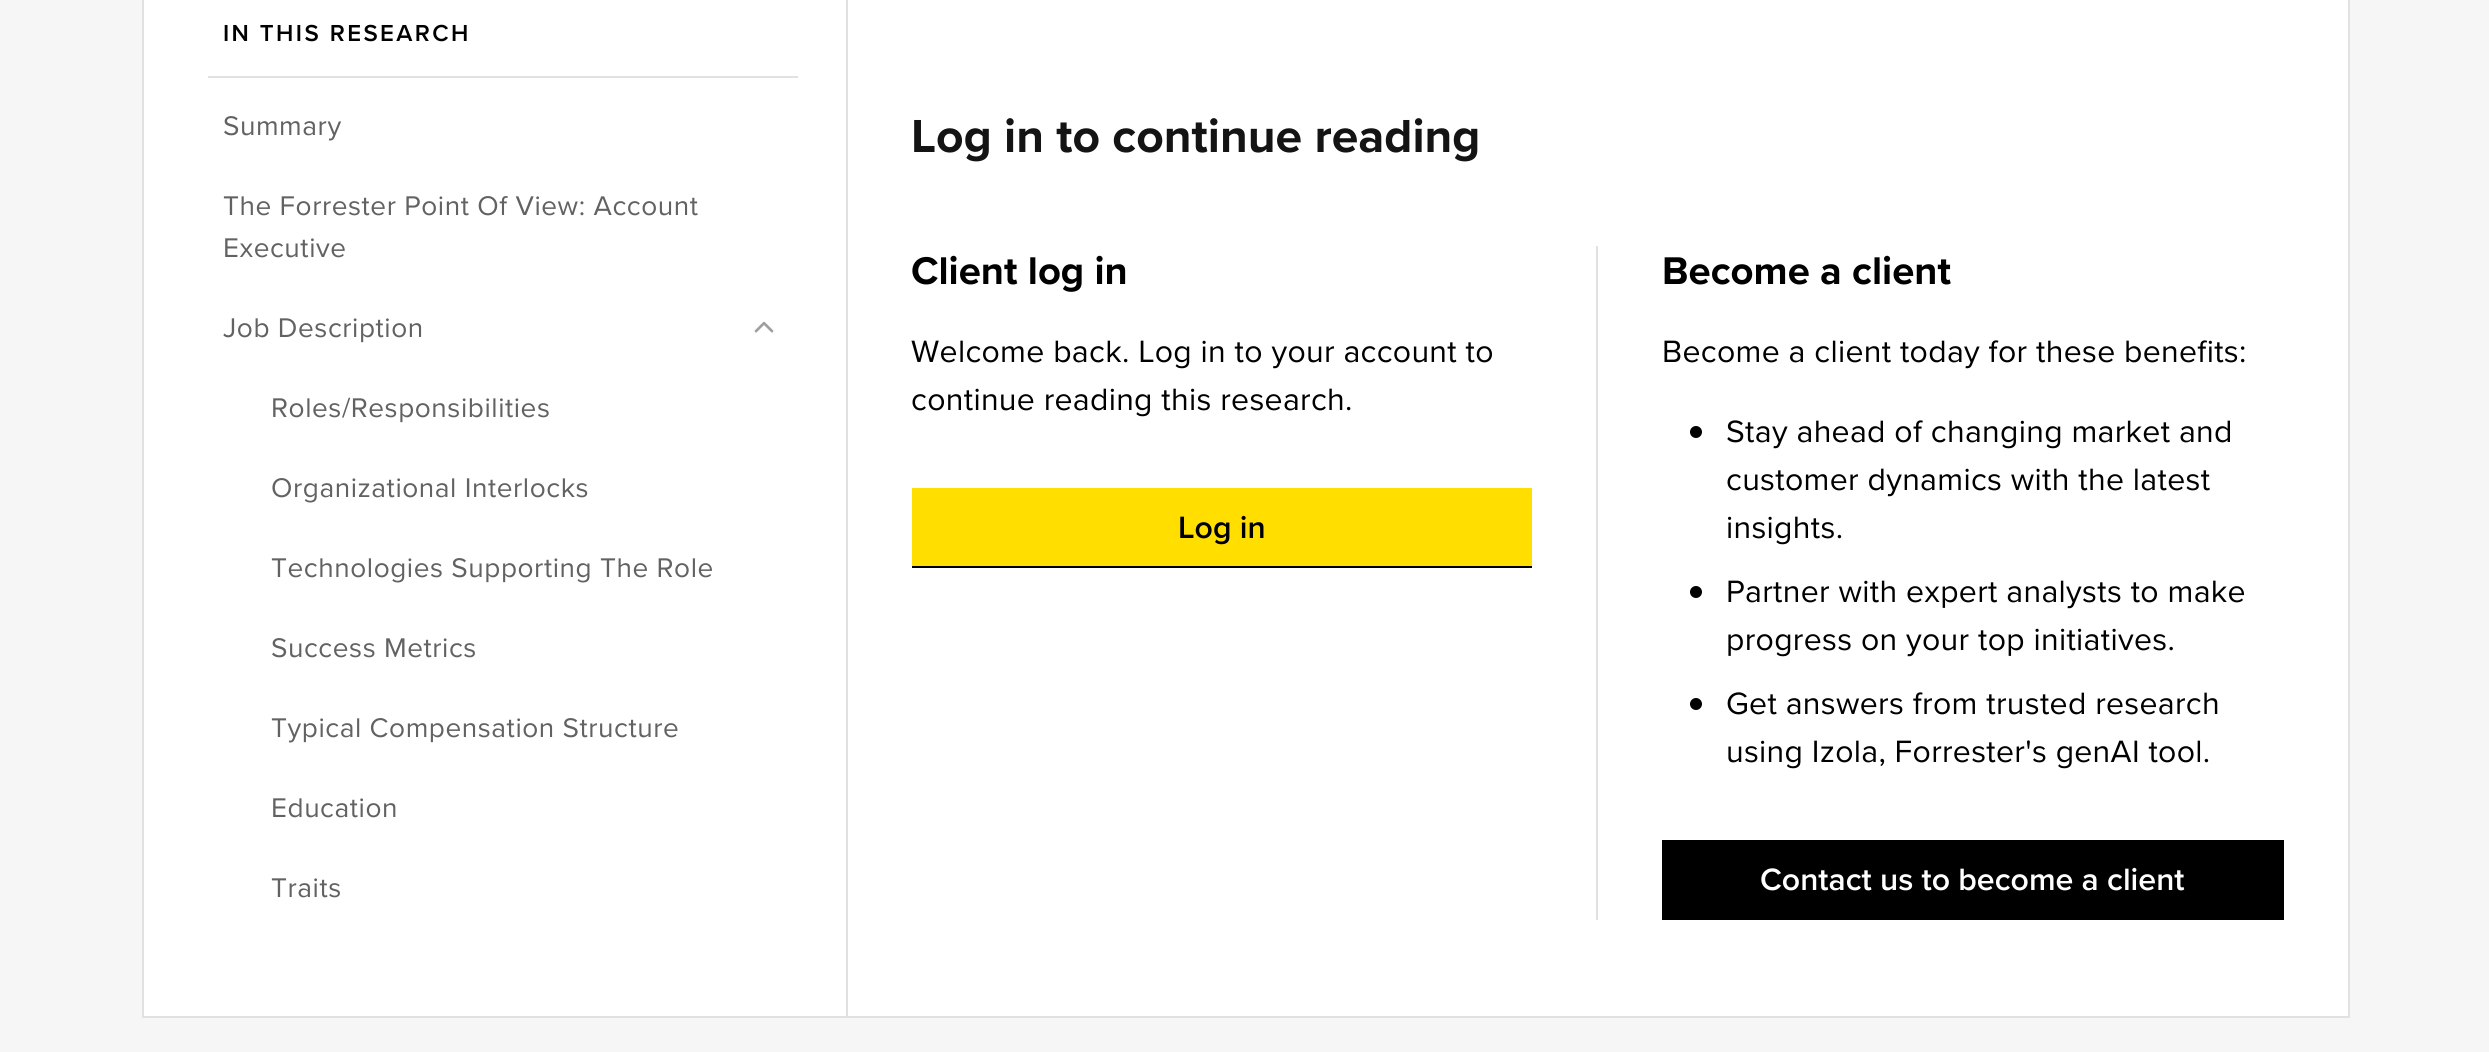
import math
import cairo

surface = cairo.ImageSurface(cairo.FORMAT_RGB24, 2489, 1052)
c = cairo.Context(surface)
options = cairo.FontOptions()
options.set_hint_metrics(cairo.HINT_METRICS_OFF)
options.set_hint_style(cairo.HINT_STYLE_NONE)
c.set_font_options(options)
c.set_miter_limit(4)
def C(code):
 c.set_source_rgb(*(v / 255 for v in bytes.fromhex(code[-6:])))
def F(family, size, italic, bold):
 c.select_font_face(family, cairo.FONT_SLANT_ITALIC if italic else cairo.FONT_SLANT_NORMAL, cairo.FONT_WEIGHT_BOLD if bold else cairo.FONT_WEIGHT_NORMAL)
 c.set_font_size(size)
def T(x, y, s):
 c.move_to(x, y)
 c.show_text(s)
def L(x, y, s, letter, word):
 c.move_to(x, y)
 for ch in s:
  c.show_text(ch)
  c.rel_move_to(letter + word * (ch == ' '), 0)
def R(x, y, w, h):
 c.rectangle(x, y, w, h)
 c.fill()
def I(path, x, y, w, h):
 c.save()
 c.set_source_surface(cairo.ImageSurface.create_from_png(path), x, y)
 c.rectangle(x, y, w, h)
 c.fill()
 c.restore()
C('f6f6f6')
c.paint()
C('ffffff')
R(144,0,702,1016)
C('e1e1e1')
R(2348,0,2,1018)
R(142,1016,2208,2)
R(142,0,2,1018)
F('Proxima Nova SemiBold',24,0,0)
C('000000')
L(223,41,'IN THIS RESEARCH',2.4,0)
C('e1e1e1')
R(208,76,590,2)
F('Proxima Nova',28,0,0)
C('626262')
L(223,135,'Summary',.55,0)
L(223,215,'The Forrester Point Of View: Account',.55,0)
L(223,257,'Executive',.55,0)
L(223,337,'Job Description',.55,0)
I('1.png',754,321,20,12)
L(271,417,'Roles/Responsibilities',.55,0)
L(271,497,'Organizational Interlocks',.55,0)
L(271,577,'Technologies Supporting The Role',.55,0)
L(271,657,'Success Metrics',.55,0)
L(271,737,'Typical Compensation Structure',.55,0)
L(271,817,'Education',.55,0)
L(271,897,'Traits',.55,0)
C('ffffff')
R(848,0,1500,1016)
C('e1e1e1')
R(846,0,2,1018)
F('Proxima Nova',48,0,1)
C('141414')
T(911,152,'Log in to continue reading')
F('Proxima Nova',40,0,1)
C('000000')
T(911,284,'Client log in')
F('Proxima Nova',32,0,0)
L(911,362,'Welcome back. Log in to your account to',.3,0)
L(911,410,'continue reading this research.',.3,0)
C('ffde00')
R(912,488,620,78)
C('000000')
R(912,566,620,2)
F('Proxima Nova SemiBold',32,0,0)
T(1178,538,'Log in')
C('e1e1e1')
R(1596,246,2,674)
F('Proxima Nova',40,0,1)
C('000000')
T(1662,284,'Become a client')
F('Proxima Nova',32,0,0)
L(1662,362,'Become a client today for these benefits:',.3,0)
c.new_path()
c.arc(1696,432,6,0,2 * math.pi)
c.fill()
L(1726,442,'Stay ahead of changing market and',.3,0)
L(1726,490,'customer dynamics with the latest',.3,0)
L(1726,538,'insights.',.3,0)
c.new_path()
c.arc(1696,592,6,0,2 * math.pi)
c.fill()
L(1726,602,'Partner with expert analysts to make',.3,0)
L(1726,650,'progress on your top initiatives.',.3,0)
c.new_path()
c.arc(1696,704,6,0,2 * math.pi)
c.fill()
L(1726,714,'Get answers from trusted research',.3,0)
L(1726,762,'using Izola, Forrester\'s genAI tool.',.3,0)
R(1662,840,622,80)
F('Proxima Nova SemiBold',32,0,0)
C('ffffff')
T(1760,890,'Contact us to become a client')
surface.write_to_png('o.png')
